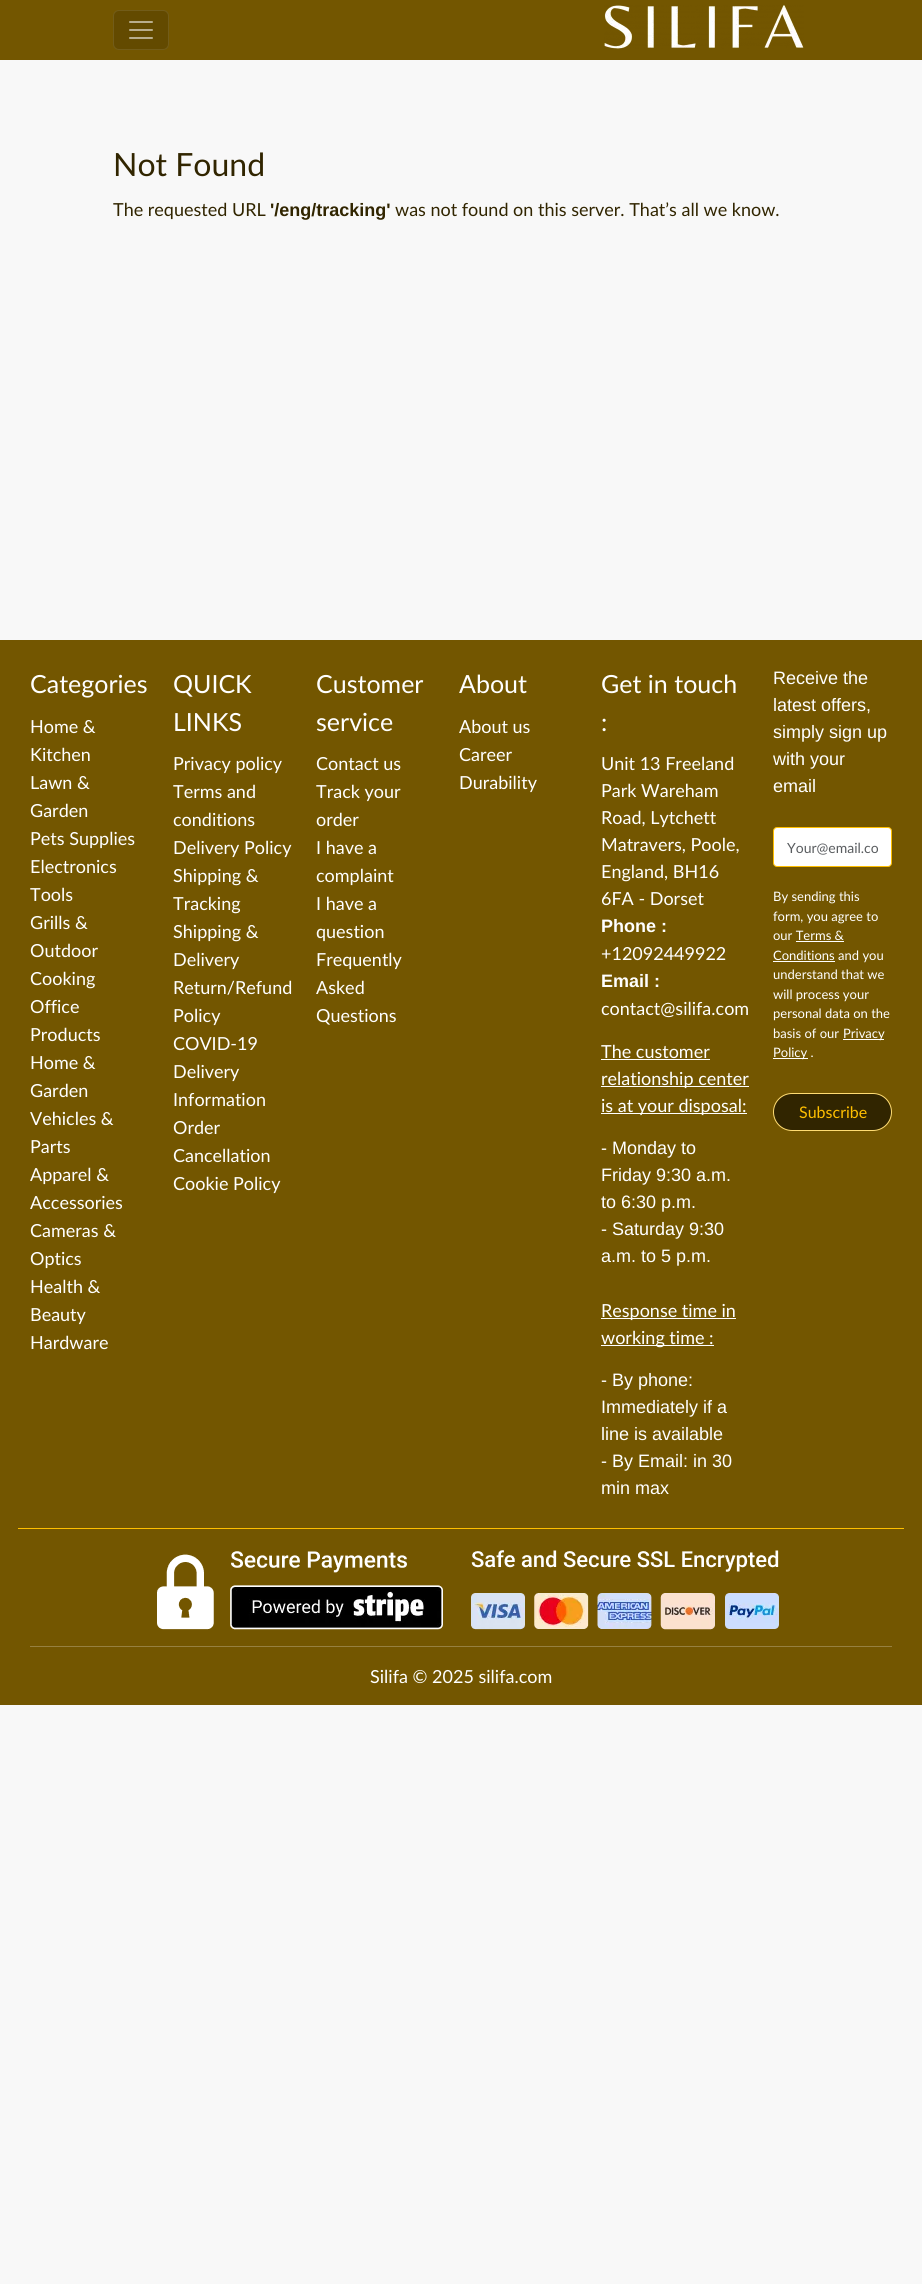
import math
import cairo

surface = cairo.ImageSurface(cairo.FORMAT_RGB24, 922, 2284)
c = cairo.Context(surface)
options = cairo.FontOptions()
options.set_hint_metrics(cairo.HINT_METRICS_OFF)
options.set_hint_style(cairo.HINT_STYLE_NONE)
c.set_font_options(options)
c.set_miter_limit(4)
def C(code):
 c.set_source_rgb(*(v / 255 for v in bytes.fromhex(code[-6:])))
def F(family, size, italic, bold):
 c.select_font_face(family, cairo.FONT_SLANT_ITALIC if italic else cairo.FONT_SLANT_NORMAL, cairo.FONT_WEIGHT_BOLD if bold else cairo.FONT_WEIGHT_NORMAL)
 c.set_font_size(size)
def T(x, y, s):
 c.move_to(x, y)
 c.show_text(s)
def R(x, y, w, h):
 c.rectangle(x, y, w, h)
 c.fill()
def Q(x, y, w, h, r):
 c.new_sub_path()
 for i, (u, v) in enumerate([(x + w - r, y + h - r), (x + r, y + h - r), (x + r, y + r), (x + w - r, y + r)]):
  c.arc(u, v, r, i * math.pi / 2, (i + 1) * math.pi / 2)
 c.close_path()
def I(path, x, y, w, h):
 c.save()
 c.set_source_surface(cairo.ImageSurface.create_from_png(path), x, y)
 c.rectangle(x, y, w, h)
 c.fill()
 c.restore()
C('f8f8f8')
c.paint()
C('735600')
R(0,0,922,60)
C('634a00')
Q(113,10,56,40,6)
c.fill()
Q(113.5,10.5,55,39,5.5)
c.set_source_rgba(1,1,1,0.1)
c.set_line_width(1)
c.stroke()
I('1.png',129,21,24,18)
I('2.png',604,5,200,44)
F('Lato',32,0,0)
C('312500')
T(113,176,'Not Found')
F('Lato',18,0,0)
T(113,216,'The requested URL')
F('Liberation Sans',18,0,1)
T(270,216,'\'/eng/tracking\'')
F('Lato',18,0,0)
T(395,216,'was not found on this server. That’s all we know.')
C('735600')
R(0,640,922,1065)
C('ffbf00')
R(18,1528,886,1)
F('Lato',25,0,0)
C('ffffff')
T(30,693,'Categories')
F('Lato',18,0,0)
T(30,733,'Home &')
T(30,761,'Kitchen')
T(30,789,'Lawn &')
T(30,817,'Garden')
T(30,845,'Pets Supplies')
T(30,873,'Electronics')
T(30,901,'Tools')
T(30,929,'Grills &')
T(30,957,'Outdoor')
T(30,985,'Cooking')
T(30,1013,'Office')
T(30,1041,'Products')
T(30,1069,'Home &')
T(30,1097,'Garden')
T(30,1125,'Vehicles &')
T(30,1153,'Parts')
T(30,1181,'Apparel &')
T(30,1209,'Accessories')
T(30,1237,'Cameras &')
T(30,1265,'Optics')
T(30,1293,'Health &')
T(30,1321,'Beauty')
T(30,1349,'Hardware')
F('Lato',25,0,0)
T(173,693,'QUICK')
T(173,731,'LINKS')
F('Lato',18,0,0)
T(173,770,'Privacy policy')
T(173,798,'Terms and')
T(173,826,'conditions')
T(173,854,'Delivery Policy')
T(173,882,'Shipping &')
T(173,910,'Tracking')
T(173,938,'Shipping &')
T(173,966,'Delivery')
T(173,994,'Return/Refund')
T(173,1022,'Policy')
T(173,1050,'COVID-19')
T(173,1078,'Delivery')
T(173,1106,'Information')
T(173,1134,'Order')
T(173,1162,'Cancellation')
T(173,1190,'Cookie Policy')
F('Lato',25,0,0)
T(316,693,'Customer')
T(316,731,'service')
F('Lato',18,0,0)
T(316,770,'Contact us')
T(316,798,'Track your')
T(316,826,'order')
T(316,854,'I have a')
T(316,882,'complaint')
T(316,910,'I have a')
T(316,938,'question')
T(316,966,'Frequently')
T(316,994,'Asked')
T(316,1022,'Questions')
F('Lato',25,0,0)
T(459,693,'About')
F('Lato',18,0,0)
T(459,733,'About us')
T(459,761,'Career')
T(459,789,'Durability')
F('Lato',25,0,0)
T(601,693,'Get in touch')
T(601,731,':')
F('Lato',18,0,0)
T(601,770,'Unit 13 Freeland')
T(601,797,'Park Wareham')
T(601,824,'Road, Lytchett')
T(601,851,'Matravers, Poole,')
T(601,878,'England, BH16')
T(601,905,'6FA - Dorset')
F('Liberation Sans',18,0,1)
T(601,932,'Phone :')
F('Lato',18,0,0)
T(601,960,'+12092449922')
F('Liberation Sans',18,0,1)
T(601,987,'Email :')
F('Lato',18,0,0)
T(601,1015,'contact@silifa.com')
T(601,1058,'The customer')
R(601,1059,109,1)
R(601,1086,148,1)
T(601,1085,'relationship center')
R(601,1113,146,1)
T(601,1112,'is at your disposal:')
F('Liberation Sans',18,0,0)
T(601,1154,'- Monday to')
T(601,1181,'Friday 9:30 a.m.')
T(601,1208,'to 6:30 p.m.')
T(601,1235,'- Saturday 9:30')
T(601,1262,'a.m. to 5 p.m.')
R(601,1318,135,1)
F('Lato',18,0,0)
T(601,1317,'Response time in')
R(601,1345,113,1)
T(601,1344,'working time :')
F('Liberation Sans',18,0,0)
T(601,1386,'- By phone:')
T(601,1413,'Immediately if a')
T(601,1440,'line is available')
T(601,1467,'- By Email: in 30')
T(601,1494,'min max')
T(773,684,'Receive the')
T(773,711,'latest offers,')
T(773,738,'simply sign up')
T(773,765,'with your')
T(773,792,'email')
Q(773.5,827.5,118,39,3.5)
c.fill_preserve()
C('ffbf00')
c.stroke()
c.save()
c.rectangle(787,839,91,17)
c.clip()
F('Lato',14,0,0)
C('595c5f')
T(787,853,'Your@email.co')
c.restore()
F('Lato',13,0,0)
C('ffffff')
T(773,901,'By sending this')
T(773,921,'form, you agree to')
T(773,940,'our Terms &')
R(773,961,62,1)
T(773,960,'Conditions and you')
R(796,941,48,1)
T(773,979,'understand that we')
T(773,999,'will process your')
T(773,1018,'personal data on the')
T(773,1038,'basis of our')
R(843,1039,41,1)
T(843,1038,'Privacy')
R(773,1058,35,1)
T(773,1057,'Policy .')
C('312500')
Q(773.5,1093.5,118,37,18.5)
c.fill_preserve()
C('ffdc73')
c.stroke()
F('Lato',16,0,0)
C('ffbf00')
T(799,1118,'Subscribe')
I('3.png',157,1550,622,80)
C('968040')
R(30,1646,862,1)
F('Lato',18,0,0)
C('ffffff')
T(370,1683,'Silifa © 2025 silifa.com')
surface.write_to_png('o.png')
